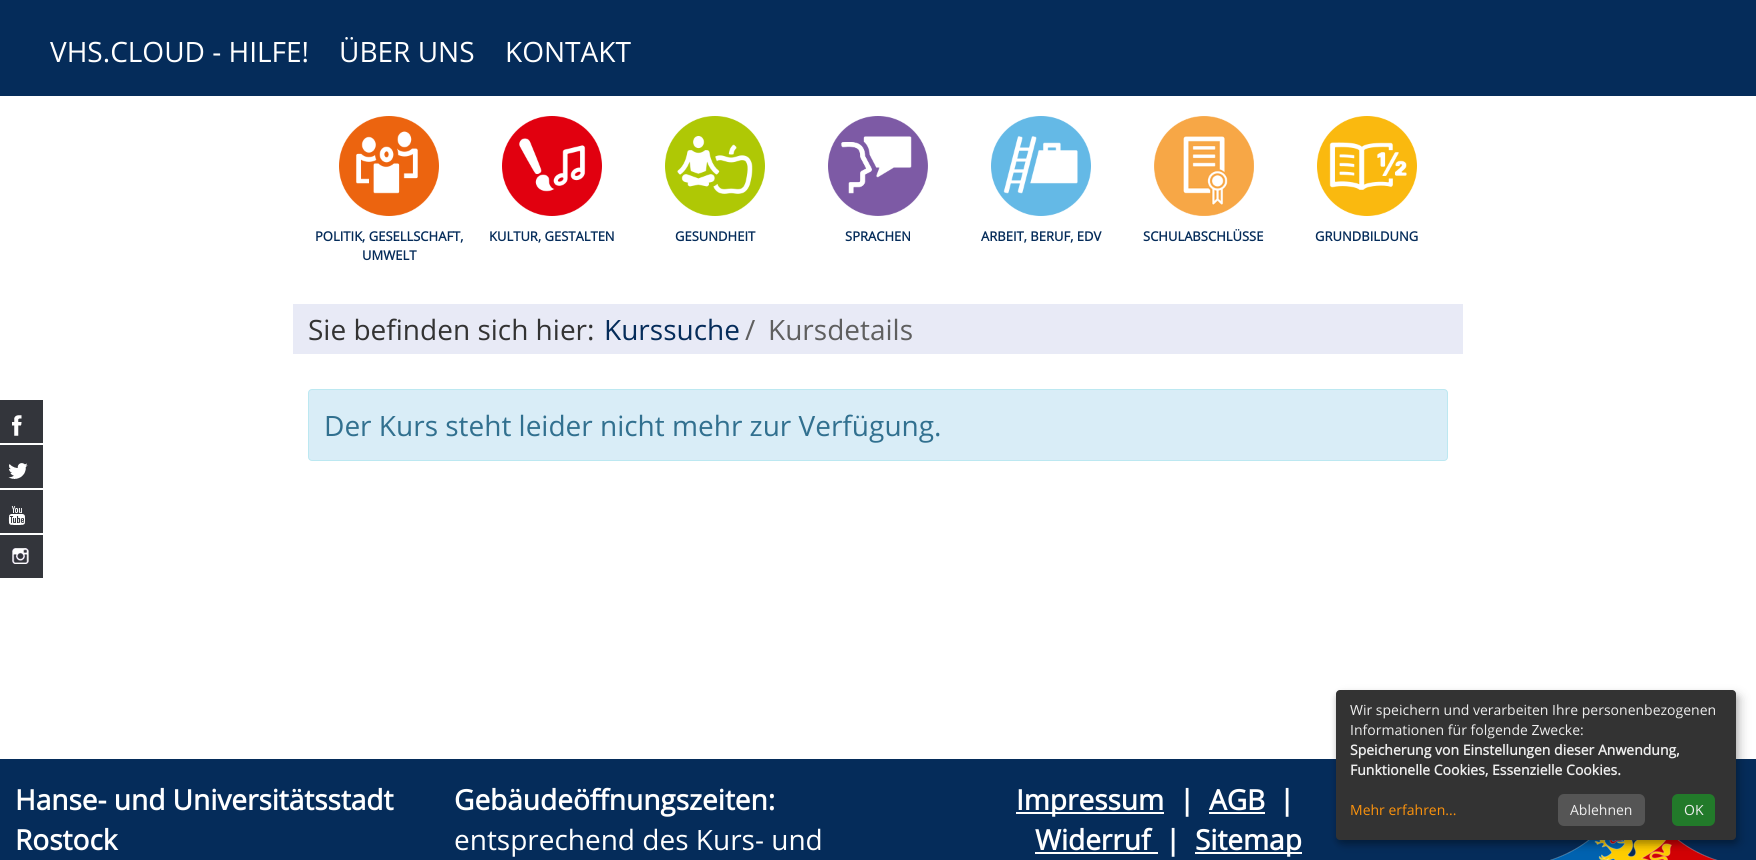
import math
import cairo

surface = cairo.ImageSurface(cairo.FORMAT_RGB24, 1756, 860)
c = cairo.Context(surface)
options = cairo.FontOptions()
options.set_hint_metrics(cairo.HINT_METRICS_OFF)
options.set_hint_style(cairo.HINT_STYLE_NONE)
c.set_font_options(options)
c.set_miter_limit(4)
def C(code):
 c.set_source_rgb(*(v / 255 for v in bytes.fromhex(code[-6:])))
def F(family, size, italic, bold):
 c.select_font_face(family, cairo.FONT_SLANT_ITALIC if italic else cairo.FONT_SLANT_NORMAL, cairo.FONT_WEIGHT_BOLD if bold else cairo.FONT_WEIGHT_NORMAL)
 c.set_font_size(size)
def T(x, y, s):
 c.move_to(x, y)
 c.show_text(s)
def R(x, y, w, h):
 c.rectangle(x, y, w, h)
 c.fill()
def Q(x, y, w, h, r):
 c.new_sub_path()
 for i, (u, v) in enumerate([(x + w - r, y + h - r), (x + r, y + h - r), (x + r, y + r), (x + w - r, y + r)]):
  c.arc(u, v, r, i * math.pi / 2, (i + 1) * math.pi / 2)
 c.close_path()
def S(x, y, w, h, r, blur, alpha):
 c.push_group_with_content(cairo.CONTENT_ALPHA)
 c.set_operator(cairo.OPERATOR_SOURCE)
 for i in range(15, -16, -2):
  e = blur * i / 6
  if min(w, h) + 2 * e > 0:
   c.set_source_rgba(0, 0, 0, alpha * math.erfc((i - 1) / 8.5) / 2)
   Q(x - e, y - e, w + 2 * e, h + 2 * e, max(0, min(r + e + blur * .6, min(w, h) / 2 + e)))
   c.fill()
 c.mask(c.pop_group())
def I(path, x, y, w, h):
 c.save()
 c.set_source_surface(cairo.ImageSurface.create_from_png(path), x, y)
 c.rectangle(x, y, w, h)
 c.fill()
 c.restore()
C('ffffff')
c.paint()
C('052c5a')
R(0,0,1756,96)
F('Open Sans',28,0,0)
C('ffffff')
T(50,62,'VHS.CLOUD - HILFE!')
T(339,62,'ÜBER UNS')
T(505,62,'KONTAKT')
I('1.png',339,116,100,100)
F('Open Sans',13,0,1)
C('052c5a')
T(315,241,'POLITIK, GESELLSCHAFT,')
T(362,260,'UMWELT')
I('2.png',502,116,100,100)
T(489,241,'KULTUR, GESTALTEN')
I('3.png',665,116,100,100)
T(675,241,'GESUNDHEIT')
I('4.png',828,116,100,100)
T(845,241,'SPRACHEN')
I('5.png',991,116,100,100)
T(981,241,'ARBEIT, BERUF, EDV')
I('6.png',1154,116,100,100)
T(1143,241,'SCHULABSCHLÜSSE')
I('7.png',1317,116,100,100)
T(1315,241,'GRUNDBILDUNG')
C('e8eaf6')
R(293,304,1170,50)
F('Open Sans',28,0,0)
C('333333')
T(308,340,'Sie befinden sich hier:')
C('052c5a')
T(604,340,'Kurssuche')
C('5f5f5f')
T(745,340,'/')
T(768,340,'Kursdetails')
C('33353b')
R(0,400,43,43)
I('8.png',12,415,10,21)
R(0,445,43,43)
I('9.png',8,463,20,16)
R(0,490,43,43)
I('10.png',8,506,17,19)
R(0,535,43,43)
I('11.png',12,548,17,16)
C('d9edf7')
Q(308.5,389.5,1139,71,3.5)
c.fill_preserve()
C('bce8f1')
c.set_line_width(1)
c.stroke()
C('31708f')
T(324,436,'Der Kurs steht leider nicht mehr zur Verfügung.')
C('052c5a')
R(0,759,1756,101)
F('Open Sans',28,0,1)
C('ffffff')
T(15,810,'Hanse- und Universitätsstadt')
T(15,850,'Rostock')
T(454,810,'Gebäudeöffnungszeiten:')
F('Open Sans',28,0,0)
T(454,850,'entsprechend des Kurs- und')
R(1016,812,148,2)
F('Open Sans',28,0,1)
T(1016,810,'Impressum')
T(1179,810,'|')
T(1209,810,'AGB')
R(1209,812,56,2)
T(1279,810,'|')
T(1035,850,'Widerruf')
R(1035,852,123,2)
T(1165,850,'|')
R(1195,852,107,2)
T(1195,850,'Sitemap')
I('12.png',1550,840,168,20)
C('000000')
S(1341,695,400,150,4,5,.19)
S(1336,694,400,150,4,3,.2)
C('333333')
Q(1336,690,400,150,4)
c.fill()
F('Open Sans',14,0,0)
C('eeeeee')
T(1350,715,'Wir speichern und verarbeiten Ihre personenbezogenen')
T(1350,735,'Informationen für folgende Zwecke:')
F('Open Sans',14,0,1)
T(1350,755,'Speicherung von Einstellungen dieser Anwendung,')
T(1350,775,'Funktionelle Cookies, Essenzielle Cookies.')
F('Open Sans',14,0,0)
C('fd930c')
T(1350,815,'Mehr erfahren...')
C('555555')
Q(1558,794,87,32,6)
c.fill()
C('eeeeee')
T(1570,815,'Ablehnen')
C('227a2a')
Q(1672,794,43,32,6)
c.fill()
C('eeeeee')
T(1684,815,'OK')
surface.write_to_png('o.png')
